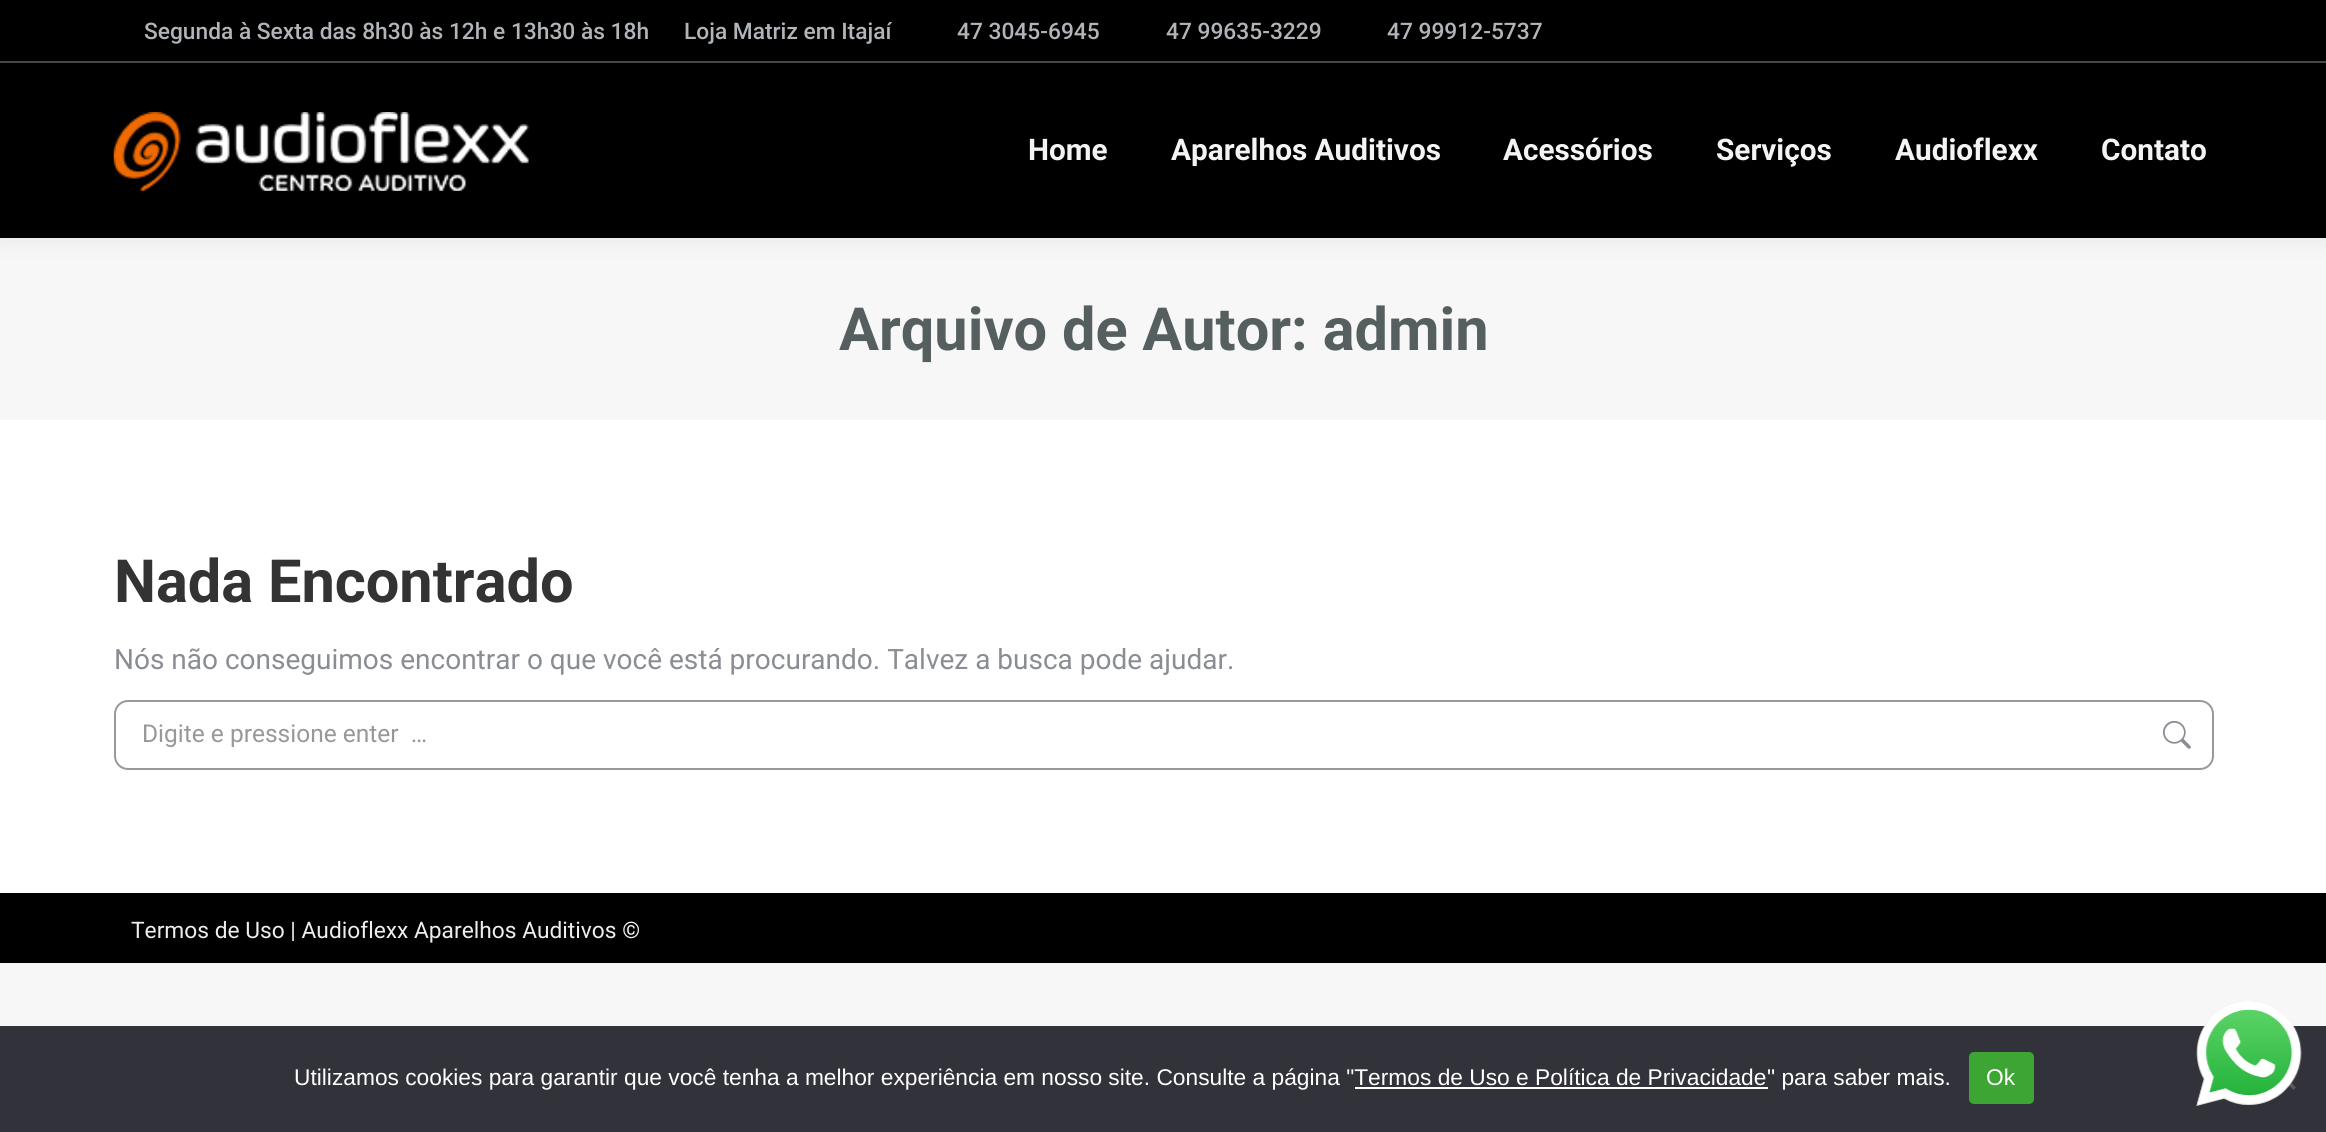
import math
import cairo

surface = cairo.ImageSurface(cairo.FORMAT_RGB24, 2326, 1132)
c = cairo.Context(surface)
options = cairo.FontOptions()
options.set_hint_metrics(cairo.HINT_METRICS_OFF)
options.set_hint_style(cairo.HINT_STYLE_NONE)
c.set_font_options(options)
c.set_miter_limit(4)
def C(code):
 c.set_source_rgb(*(v / 255 for v in bytes.fromhex(code[-6:])))
def F(family, size, italic, bold):
 c.select_font_face(family, cairo.FONT_SLANT_ITALIC if italic else cairo.FONT_SLANT_NORMAL, cairo.FONT_WEIGHT_BOLD if bold else cairo.FONT_WEIGHT_NORMAL)
 c.set_font_size(size)
def T(x, y, s):
 c.move_to(x, y)
 c.show_text(s)
def R(x, y, w, h):
 c.rectangle(x, y, w, h)
 c.fill()
def Q(x, y, w, h, r):
 c.new_sub_path()
 for i, (u, v) in enumerate([(x + w - r, y + h - r), (x + r, y + h - r), (x + r, y + r), (x + w - r, y + r)]):
  c.arc(u, v, r, i * math.pi / 2, (i + 1) * math.pi / 2)
 c.close_path()
def S(x, y, w, h, r, blur, alpha):
 c.push_group_with_content(cairo.CONTENT_ALPHA)
 c.set_operator(cairo.OPERATOR_SOURCE)
 for i in range(15, -16, -2):
  e = blur * i / 6
  if min(w, h) + 2 * e > 0:
   c.set_source_rgba(0, 0, 0, alpha * math.erfc((i - 1) / 8.5) / 2)
   Q(x - e, y - e, w + 2 * e, h + 2 * e, max(0, min(r + e + blur * .6, min(w, h) / 2 + e)))
   c.fill()
 c.mask(c.pop_group())
def I(path, x, y, w, h):
 c.save()
 c.set_source_surface(cairo.ImageSurface.create_from_png(path), x, y)
 c.rectangle(x, y, w, h)
 c.fill()
 c.restore()
C('f7f7f7')
c.paint()
C('ffffff')
R(0,420,2326,473)
C('000000')
S(-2,-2,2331,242,0,13,.07)
C('000000')
R(0,0,2326,238)
F('Roboto Medium',22.75,0,0)
C('b1b4b8')
T(144,39,'Segunda à Sexta das 8h30 às 12h e 13h30 às 18h')
T(684,39,'Loja Matriz em Itajaí')
T(957,39,'47 3045-6945')
T(1166,39,'47 99635-3229')
T(1387,39,'47 99912-5737')
C('474747')
R(0,61,2326,2)
I('1.png',113,112,416,79)
F('Roboto',29.75,0,1)
C('f4f4f4')
T(1028,160,'Home')
T(1171,160,'Aparelhos Auditivos')
T(1503,160,'Acessórios')
T(1716,160,'Serviços')
T(1895,160,'Audioflexx')
T(2101,160,'Contato')
F('Roboto',59.5,0,1)
C('565f5f')
T(839,350,'Arquivo de Autor: admin')
C('333333')
T(114,602,'Nada Encontrado')
F('Roboto',28,0,0)
C('8b8d94')
T(114,669,'Nós não conseguimos encontrar o que você está procurando. Talvez a busca pode ajudar.')
Q(115,701,2098,68,13)
C('999999')
c.stroke()
F('Roboto',24.5,0,0)
C('989898')
T(142,742,'Digite e pressione enter  …')
I('2.png',2163,721,28,28)
C('000000')
R(0,893,2326,70)
F('Roboto',22.75,0,0)
C('eeeeee')
T(131,938,'Termos de Uso | Audioflexx Aparelhos Auditivos ©')
C('32323a')
R(0,1026,2326,106)
F('Liberation Sans',22.75,0,0)
C('ffffff')
T(294,1085,'Utilizamos cookies para garantir que você tenha a melhor experiência em nosso site. Consulte a página "Termos de Uso e Política de Privacidade')
R(1355,1087,413,2)
T(1767,1085,'" para saber mais.')
C('3ca533')
Q(1969,1052,65,52,5)
c.fill()
C('ffffff')
T(1986,1085,'Ok')
C('59595d')
c.new_path()
c.move_to(2275,1071.5)
c.line_to(2277.5,1069)
c.line_to(2296,1087.5)
c.line_to(2293.5,1090)
c.close_path()
c.fill()
I('3.png',2196,1001,106,105)
surface.write_to_png('o.png')
